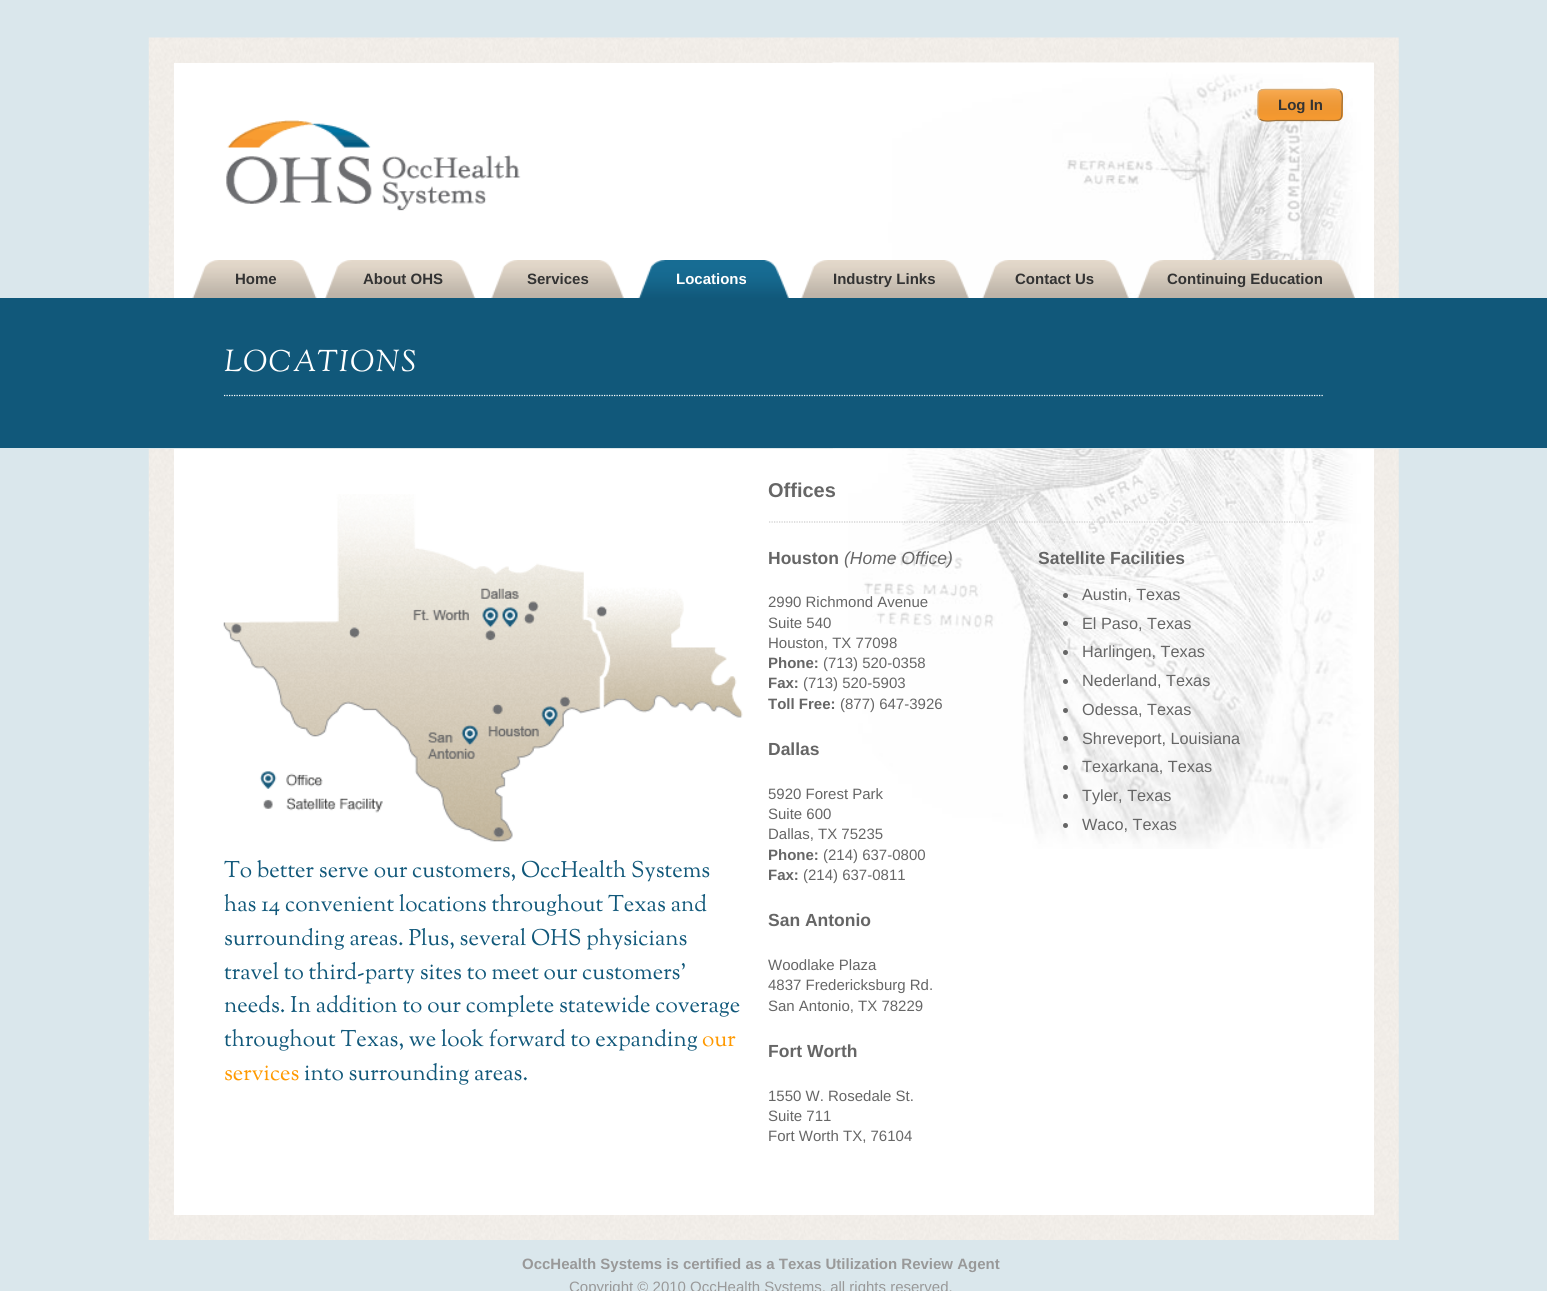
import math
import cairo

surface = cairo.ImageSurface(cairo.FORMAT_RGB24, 1547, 1291)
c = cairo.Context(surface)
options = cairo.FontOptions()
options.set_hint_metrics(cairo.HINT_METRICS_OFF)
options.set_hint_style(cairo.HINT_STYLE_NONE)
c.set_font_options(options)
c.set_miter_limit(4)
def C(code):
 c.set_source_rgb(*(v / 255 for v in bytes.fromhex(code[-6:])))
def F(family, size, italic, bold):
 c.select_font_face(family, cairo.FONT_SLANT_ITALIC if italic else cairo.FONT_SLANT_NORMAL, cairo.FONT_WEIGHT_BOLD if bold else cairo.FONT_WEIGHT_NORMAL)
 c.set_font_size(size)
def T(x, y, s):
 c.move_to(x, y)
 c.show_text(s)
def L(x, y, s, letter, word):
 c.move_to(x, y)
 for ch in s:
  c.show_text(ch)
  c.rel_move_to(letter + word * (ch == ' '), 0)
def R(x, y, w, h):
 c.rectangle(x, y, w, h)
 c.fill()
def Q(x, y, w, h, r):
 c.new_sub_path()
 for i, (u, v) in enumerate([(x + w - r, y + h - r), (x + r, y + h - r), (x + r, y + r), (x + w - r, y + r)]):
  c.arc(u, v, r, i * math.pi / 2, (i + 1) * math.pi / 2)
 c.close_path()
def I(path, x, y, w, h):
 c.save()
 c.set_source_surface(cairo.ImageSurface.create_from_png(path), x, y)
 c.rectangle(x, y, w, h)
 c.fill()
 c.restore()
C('dae7ec')
c.paint()
I('1.png',148,37,1251,261)
C('ffffff')
R(174,63,1200,235)
I('2.png',832,62,542,236)
C('f69a30')
Q(1258,89,85,32,6)
c.fill()
I('3.png',1257,88,86,32)
c.new_path()
c.move_to(1340,91)
c.curve_to(1343.5,94,1342,101.5,1342,105)
c.curve_to(1342,122.5,1342.5,120.5,1324,120.5)
c.line_to(1276,120.5)
c.curve_to(1274,120.5,1263.5,122.5,1260,119)
C('9c6f38')
c.set_line_width(1.2)
c.stroke()
c.new_path()
c.move_to(1260,119)
c.curve_to(1256.5,116,1258,108.5,1258,105)
c.curve_to(1258,87.5,1257.5,89.5,1276,89.5)
c.line_to(1324,89.5)
c.curve_to(1326,89.5,1336.5,87.5,1340,91)
C('d6ad7a')
c.stroke()
F('Liberation Sans',15,0,1)
C('333333')
T(1278,110,'Log In')
I('4.png',226,120,295,91)
I('5.png',192,260,125,38)
T(235,284,'Home')
I('6.png',325,260,151,38)
T(363,284,'About OHS')
I('7.png',491,260,133,38)
T(527,284,'Services')
I('8.png',638,260,151,38)
C('ffffff')
T(676,284,'Locations')
I('9.png',801,260,168,38)
C('333333')
T(833,284,'Industry Links')
I('10.png',982,260,147,38)
T(1015,284,'Contact Us')
I('11.png',1137,260,218,38)
T(1167,284,'Continuing Education')
C('11587a')
R(0,298,1547,150)
c.new_path()
c.move_to(224,395.5)
c.line_to(1324,395.5)
C('ffffff')
c.set_dash([1.25,1.25])
c.stroke()
F('OFL Sorts Mill Goudy TT Medium',30,1,0)
L(224,371,'LOCATIONS',1.25,0)
I('12.png',148,448,1251,792)
R(174,449,1200,766)
I('13.png',833,448,541,401)
I('14.png',223,494,520,348)
F('OFL Sorts Mill Goudy TT Medium',22.5,0,0)
C('11587a')
T(224,877,'To better serve our customers, OccHealth Systems')
T(224,911,'has 14 convenient locations throughout Texas and')
T(224,945,'surrounding areas. Plus, several OHS physicians')
T(224,979,'travel to third-party sites to meet our customers\'')
T(224,1012,'needs. In addition to our complete statewide coverage')
T(224,1046,'throughout Texas, we look forward to expanding')
C('ff9900')
T(702,1046,'our')
T(224,1080,'services')
C('11587a')
T(304,1080,'into surrounding areas.')
c.new_path()
c.move_to(769,522)
c.line_to(1312.5,522)
C('cccccc')
c.stroke()
F('Liberation Sans',20,0,1)
C('666666')
T(768,497,'Offices')
F('Liberation Sans',17.5,0,1)
T(768,564,'Houston')
F('Liberation Sans',17.5,1,0)
T(844,564,'(Home Office)')
F('Liberation Sans',15,0,0)
T(768,607,'2990 Richmond Avenue')
T(768,628,'Suite 540')
T(768,648,'Houston, TX 77098')
F('Liberation Sans',15,0,1)
T(768,668,'Phone:')
F('Liberation Sans',15,0,0)
T(823,668,'(713) 520-0358')
F('Liberation Sans',15,0,1)
T(768,688,'Fax:')
F('Liberation Sans',15,0,0)
T(803,688,'(713) 520-5903')
F('Liberation Sans',15,0,1)
T(768,709,'Toll Free:')
F('Liberation Sans',15,0,0)
T(840,709,'(877) 647-3926')
F('Liberation Sans',17.5,0,1)
T(768,755,'Dallas')
F('Liberation Sans',15,0,0)
T(768,799,'5920 Forest Park')
T(768,819,'Suite 600')
T(768,839,'Dallas, TX 75235')
F('Liberation Sans',15,0,1)
T(768,860,'Phone:')
F('Liberation Sans',15,0,0)
T(823,860,'(214) 637-0800')
F('Liberation Sans',15,0,1)
T(768,880,'Fax:')
F('Liberation Sans',15,0,0)
T(803,880,'(214) 637-0811')
F('Liberation Sans',17.5,0,1)
T(768,926,'San Antonio')
F('Liberation Sans',15,0,0)
T(768,970,'Woodlake Plaza')
T(768,990,'4837 Fredericksburg Rd.')
T(768,1011,'San Antonio, TX 78229')
F('Liberation Sans',17.5,0,1)
T(768,1057,'Fort Worth')
F('Liberation Sans',15,0,0)
T(768,1101,'1550 W. Rosedale St.')
T(768,1121,'Suite 711')
T(768,1141,'Fort Worth TX, 76104')
F('Liberation Sans',17.5,0,1)
T(1038,564,'Satellite Facilities')
c.new_path()
c.arc(1065.5,595.5,2.5,0,2 * math.pi)
c.fill()
F('Liberation Sans',16.25,0,0)
T(1082,600,'Austin, Texas')
c.new_path()
c.arc(1065.5,623.5,2.5,0,2 * math.pi)
c.fill()
T(1082,629,'El Paso, Texas')
c.new_path()
c.arc(1065.5,652.5,2.5,0,2 * math.pi)
c.fill()
T(1082,657,'Harlingen, Texas')
c.new_path()
c.arc(1065.5,681.5,2.5,0,2 * math.pi)
c.fill()
T(1082,686,'Nederland, Texas')
c.new_path()
c.arc(1065.5,710.5,2.5,0,2 * math.pi)
c.fill()
T(1082,715,'Odessa, Texas')
c.new_path()
c.arc(1065.5,738.5,2.5,0,2 * math.pi)
c.fill()
T(1082,744,'Shreveport, Louisiana')
c.new_path()
c.arc(1065.5,767.5,2.5,0,2 * math.pi)
c.fill()
T(1082,772,'Texarkana, Texas')
c.new_path()
c.arc(1065.5,796.5,2.5,0,2 * math.pi)
c.fill()
T(1082,801,'Tyler, Texas')
c.new_path()
c.arc(1065.5,825.5,2.5,0,2 * math.pi)
c.fill()
T(1082,830,'Waco, Texas')
F('Liberation Sans',15,0,1)
C('999999')
T(522,1269,'OccHealth Systems is certified as a Texas Utilization Review Agent')
F('Liberation Sans',15,0,0)
T(569,1292,'Copyright © 2010 OccHealth Systems, all rights reserved.')
surface.write_to_png('o.png')
